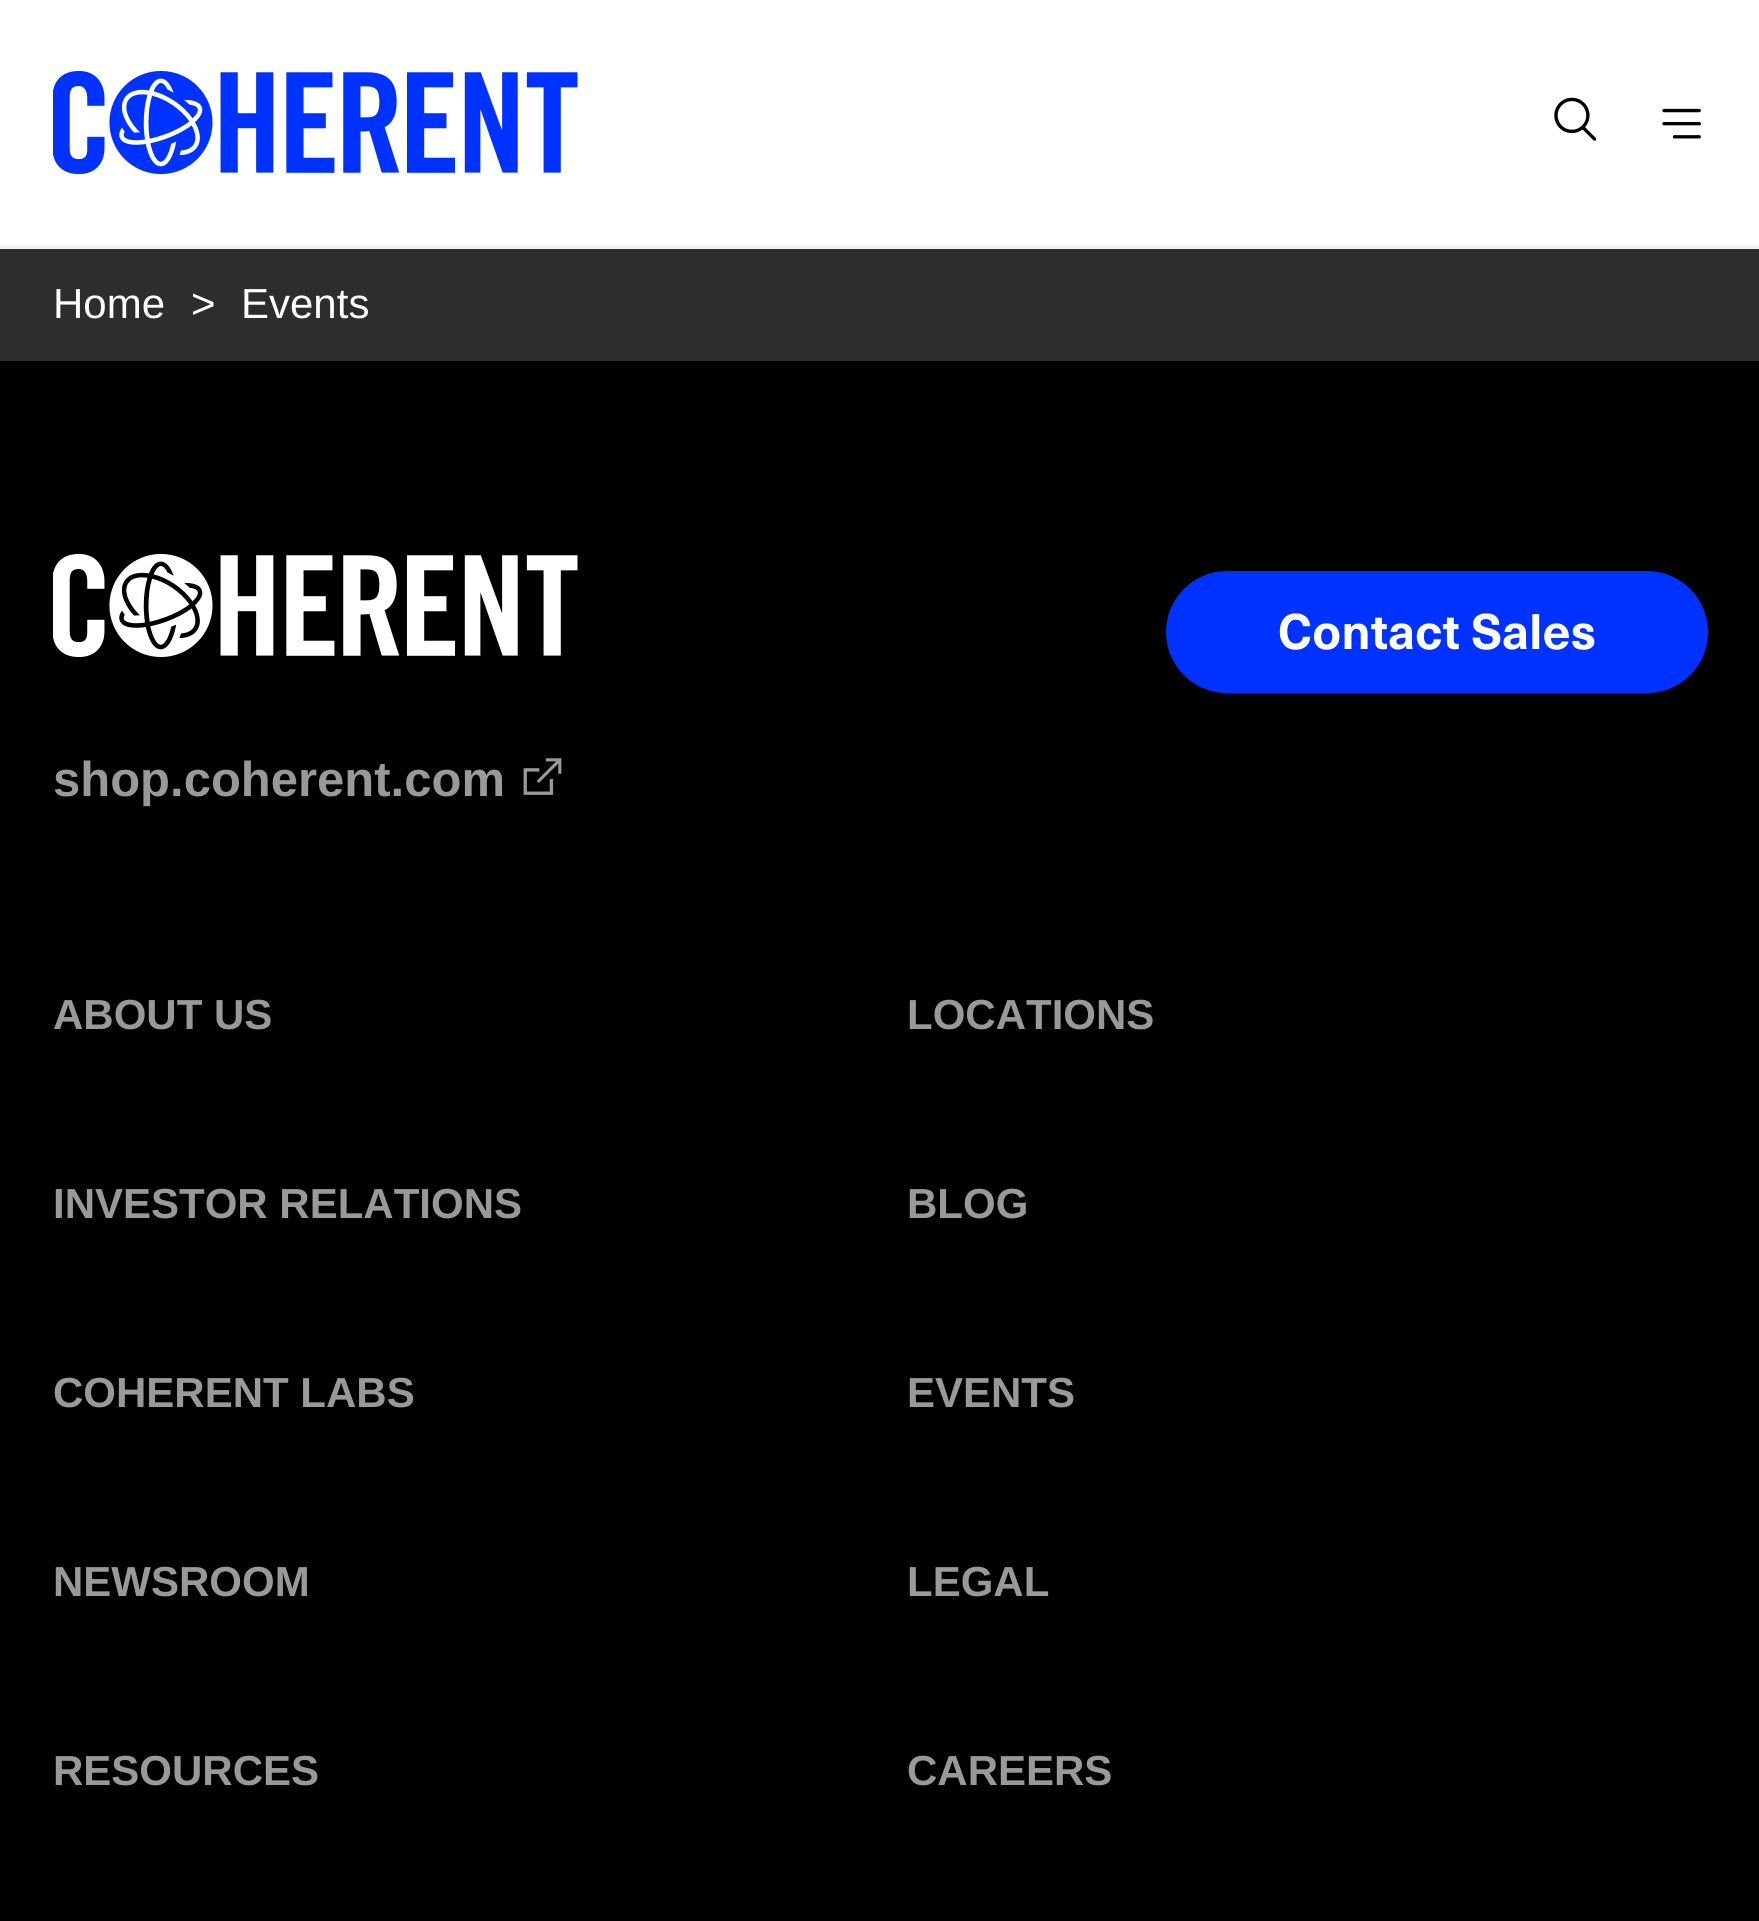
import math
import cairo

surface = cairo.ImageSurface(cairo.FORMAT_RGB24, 1759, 1921)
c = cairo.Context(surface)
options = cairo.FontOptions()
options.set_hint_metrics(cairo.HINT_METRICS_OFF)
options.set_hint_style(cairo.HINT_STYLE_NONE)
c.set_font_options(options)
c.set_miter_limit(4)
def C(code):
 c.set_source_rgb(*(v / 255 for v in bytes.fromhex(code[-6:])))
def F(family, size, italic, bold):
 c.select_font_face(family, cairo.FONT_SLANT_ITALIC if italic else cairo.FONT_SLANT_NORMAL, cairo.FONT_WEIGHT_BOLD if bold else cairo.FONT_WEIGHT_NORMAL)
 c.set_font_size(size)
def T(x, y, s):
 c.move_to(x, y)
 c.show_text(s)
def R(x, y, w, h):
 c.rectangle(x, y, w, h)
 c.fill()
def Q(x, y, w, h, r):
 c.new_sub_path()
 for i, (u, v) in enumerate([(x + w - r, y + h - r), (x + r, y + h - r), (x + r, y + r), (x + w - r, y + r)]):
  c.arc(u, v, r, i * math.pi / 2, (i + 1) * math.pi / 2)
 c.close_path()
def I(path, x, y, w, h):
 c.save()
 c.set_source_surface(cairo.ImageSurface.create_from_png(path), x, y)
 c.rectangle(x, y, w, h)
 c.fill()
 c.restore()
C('ffffff')
c.paint()
C('f3f3f3')
R(0,245,1759,4)
I('1.png',53,70,525,105)
I('2.png',1554,97,43,44)
I('3.png',1662,108,39,31)
C('2d2d2d')
R(0,249,1759,112)
F('Liberation Sans',42,0,0)
C('ffffff')
T(53,318,'Home')
T(191,318,'>')
T(241,318,'Events')
C('000000')
R(0,361,1759,1560)
C('0032ff')
Q(1169.5,574.5,535,115,57.5)
c.fill_preserve()
c.set_line_width(7)
c.stroke()
F('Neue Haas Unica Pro',49,0,1)
C('ffffff')
T(1278,649,'Contact Sales')
I('4.png',53,553,525,105)
F('Liberation Sans',49,0,1)
C('999999')
T(53,796,'shop.coherent.com')
I('5.png',523,758,39,37)
F('Liberation Sans',42,0,1)
T(53,1029,'ABOUT US')
T(907,1029,'LOCATIONS')
T(53,1218,'INVESTOR RELATIONS')
T(907,1218,'BLOG')
T(53,1407,'COHERENT LABS')
T(907,1407,'EVENTS')
T(53,1596,'NEWSROOM')
T(907,1596,'LEGAL')
T(53,1785,'RESOURCES')
T(907,1785,'CAREERS')
surface.write_to_png('o.png')
